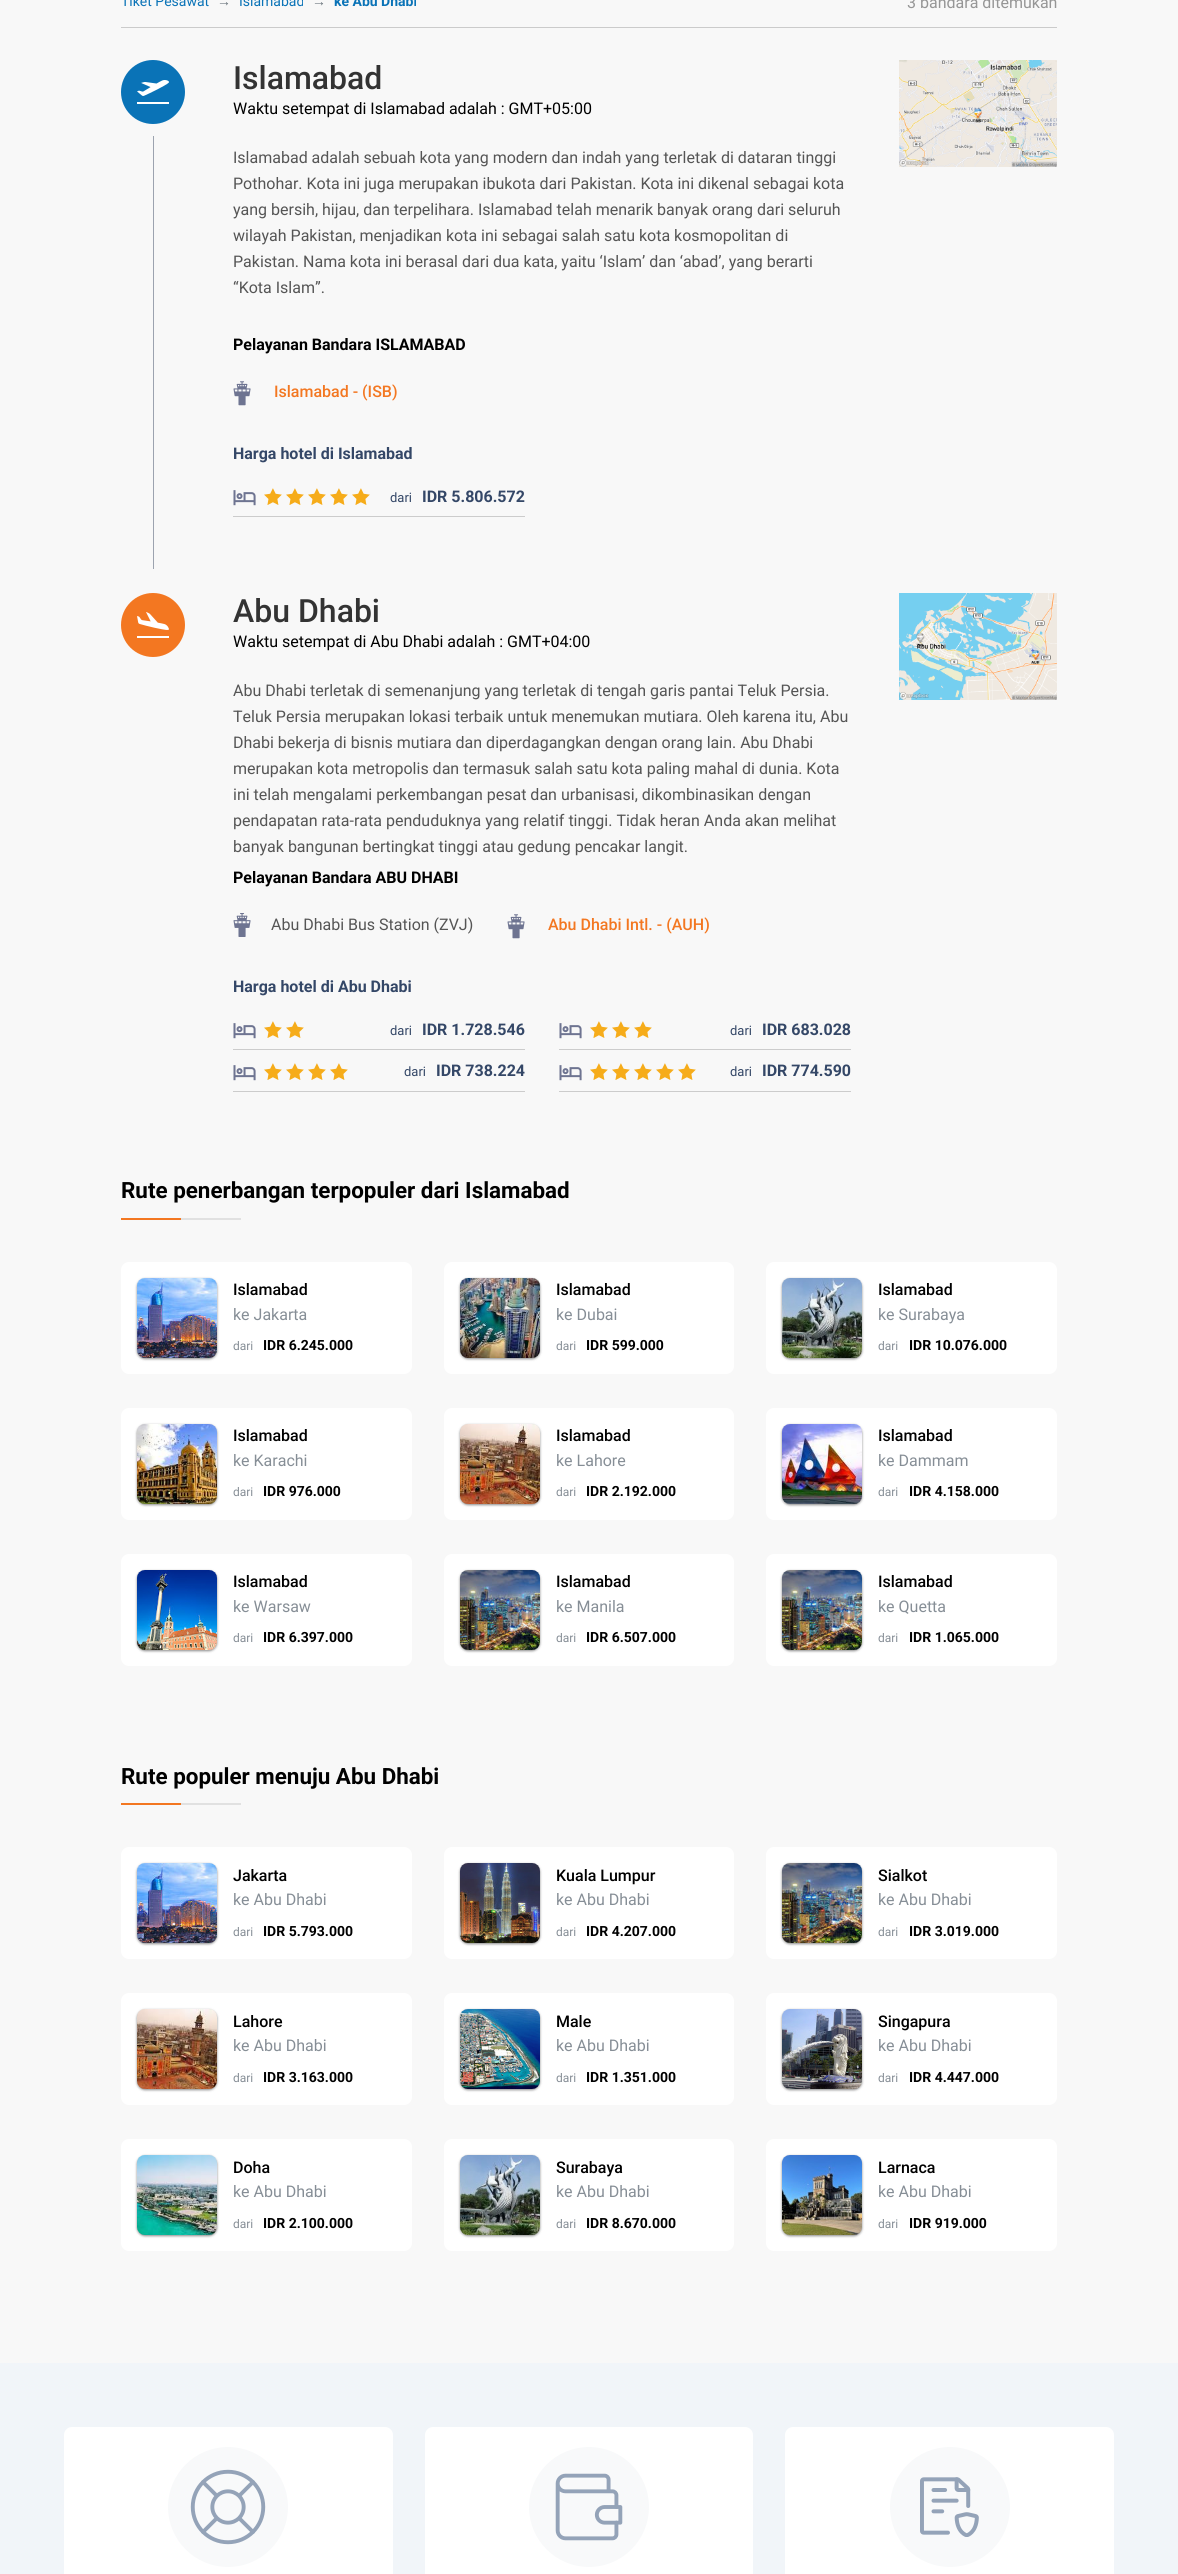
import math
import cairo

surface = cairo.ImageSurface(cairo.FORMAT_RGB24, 1178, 2574)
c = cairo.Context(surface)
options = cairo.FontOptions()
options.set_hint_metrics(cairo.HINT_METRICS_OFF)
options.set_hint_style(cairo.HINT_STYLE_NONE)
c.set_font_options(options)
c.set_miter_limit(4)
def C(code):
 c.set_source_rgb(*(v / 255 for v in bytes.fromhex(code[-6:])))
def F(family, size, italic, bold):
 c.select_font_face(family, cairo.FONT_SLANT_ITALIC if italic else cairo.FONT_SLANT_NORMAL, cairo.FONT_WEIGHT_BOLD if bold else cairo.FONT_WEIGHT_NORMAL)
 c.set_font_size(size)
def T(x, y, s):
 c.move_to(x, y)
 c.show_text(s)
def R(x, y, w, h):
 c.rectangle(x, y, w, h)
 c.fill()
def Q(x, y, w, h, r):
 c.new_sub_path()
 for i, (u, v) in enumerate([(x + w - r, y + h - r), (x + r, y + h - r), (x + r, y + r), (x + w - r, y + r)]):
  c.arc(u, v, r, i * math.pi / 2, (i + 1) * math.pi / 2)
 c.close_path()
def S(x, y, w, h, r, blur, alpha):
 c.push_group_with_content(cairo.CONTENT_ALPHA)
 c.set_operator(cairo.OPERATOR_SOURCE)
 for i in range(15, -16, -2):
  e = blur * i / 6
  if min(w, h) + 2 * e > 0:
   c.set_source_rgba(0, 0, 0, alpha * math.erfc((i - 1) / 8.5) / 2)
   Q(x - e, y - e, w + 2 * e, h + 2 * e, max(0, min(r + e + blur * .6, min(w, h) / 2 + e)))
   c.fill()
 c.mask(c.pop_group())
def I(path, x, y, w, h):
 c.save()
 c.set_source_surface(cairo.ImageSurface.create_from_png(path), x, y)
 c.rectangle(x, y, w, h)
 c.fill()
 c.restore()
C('f8f8f8')
c.paint()
C('cbcbcb')
R(121,27,936,1)
F('Roboto',14,0,0)
C('0a73b7')
T(121,6,'Tiket Pesawat')
F('Liberation Sans',14,0,0)
C('6c757d')
T(217,6,'→')
F('Roboto',14,0,0)
C('0a73b7')
T(239,6,'Islamabad')
F('Liberation Sans',14,0,1)
C('6c757d')
T(312,6,'→')
F('Roboto',14,0,1)
C('0a73b7')
T(334,6,'ke Abu Dhabi')
F('Roboto',16,0,0)
C('969696')
T(907,8,'3 bandara ditemukan')
C('0a73b7')
c.new_path()
c.arc(153,92,32,0,2 * math.pi)
c.fill()
I('1.png',137,80,32,24)
C('9ca3af')
R(153,136,1,433)
F('Roboto Medium',32,0,0)
C('333333')
T(233,89,'Islamabad')
F('Roboto',16,0,0)
C('000000')
T(233,114,'Waktu setempat di Islamabad adalah : GMT+05:00')
C('555555')
T(233,163,'Islamabad adalah sebuah kota yang modern dan indah yang terletak di dataran tinggi')
T(233,189,'Pothohar. Kota ini juga merupakan ibukota dari Pakistan. Kota ini dikenal sebagai kota')
T(233,215,'yang bersih, hijau, dan terpelihara. Islamabad telah menarik banyak orang dari seluruh')
T(233,241,'wilayah Pakistan, menjadikan kota ini sebagai salah satu kota kosmopolitan di')
T(233,267,'Pakistan. Nama kota ini berasal dari dua kata, yaitu ‘Islam’ dan ‘abad’, yang berarti')
T(233,293,'“Kota Islam”.')
F('Roboto',16,0,1)
C('000000')
T(233,350,'Pelayanan Bandara ISLAMABAD')
I('2.png',233,381,18,25)
F('Roboto Medium',16,0,0)
C('f37721')
T(274,397,'Islamabad - (ISB)')
F('Roboto',16,0,1)
C('344767')
T(233,459,'Harga hotel di Islamabad')
C('cccccc')
R(233,516,292,1)
I('3.png',233,490,23,16)
I('4.png',264,488,18,17)
I('4.png',286,488,18,17)
I('4.png',308,488,18,17)
I('4.png',330,488,18,17)
I('4.png',352,488,18,17)
F('Roboto',13,0,0)
C('344767')
T(390,502,'dari')
F('Roboto',16,0,1)
T(422,502,'IDR 5.806.572')
I('5.png',899,60,158,107)
C('f37721')
c.arc(153,625,32,0,2 * math.pi)
c.fill()
I('6.png',137,612,32,26)
F('Roboto Medium',32,0,0)
C('333333')
T(233,622,'Abu Dhabi')
F('Roboto',16,0,0)
C('000000')
T(233,647,'Waktu setempat di Abu Dhabi adalah : GMT+04:00')
C('555555')
T(233,696,'Abu Dhabi terletak di semenanjung yang terletak di tengah garis pantai Teluk Persia.')
T(233,722,'Teluk Persia merupakan lokasi terbaik untuk menemukan mutiara. Oleh karena itu, Abu')
T(233,748,'Dhabi bekerja di bisnis mutiara dan diperdagangkan dengan orang lain. Abu Dhabi')
T(233,774,'merupakan kota metropolis dan termasuk salah satu kota paling mahal di dunia. Kota')
T(233,800,'ini telah mengalami perkembangan pesat dan urbanisasi, dikombinasikan dengan')
T(233,826,'pendapatan rata-rata penduduknya yang relatif tinggi. Tidak heran Anda akan melihat')
T(233,852,'banyak bangunan bertingkat tinggi atau gedung pencakar langit.')
F('Roboto',16,0,1)
C('000000')
T(233,883,'Pelayanan Bandara ABU DHABI')
I('7.png',233,913,18,24)
F('Roboto',16,0,0)
C('555555')
T(271,930,'Abu Dhabi Bus Station (ZVJ)')
I('2.png',507,914,18,25)
F('Roboto Medium',16,0,0)
C('f37721')
T(548,930,'Abu Dhabi Intl. - (AUH)')
F('Roboto',16,0,1)
C('344767')
T(233,992,'Harga hotel di Abu Dhabi')
C('cccccc')
R(233,1049,292,1)
I('3.png',233,1023,23,16)
I('4.png',264,1021,18,17)
I('4.png',286,1021,18,17)
F('Roboto',13,0,0)
C('344767')
T(390,1035,'dari')
F('Roboto',16,0,1)
T(422,1035,'IDR 1.728.546')
C('cccccc')
R(559,1049,292,1)
I('3.png',559,1023,23,16)
I('4.png',590,1021,18,17)
I('4.png',612,1021,18,17)
I('4.png',634,1021,18,17)
F('Roboto',13,0,0)
C('344767')
T(730,1035,'dari')
F('Roboto',16,0,1)
T(762,1035,'IDR 683.028')
C('cccccc')
R(233,1091,292,1)
I('3.png',233,1065,23,16)
I('4.png',264,1063,18,17)
I('4.png',286,1063,18,17)
I('4.png',308,1063,18,17)
I('4.png',330,1063,18,17)
F('Roboto',13,0,0)
C('344767')
T(404,1076,'dari')
F('Roboto',16,0,1)
T(436,1076,'IDR 738.224')
C('cccccc')
R(559,1091,292,1)
I('3.png',559,1065,23,16)
I('4.png',590,1063,18,17)
I('4.png',612,1063,18,17)
I('4.png',634,1063,18,17)
I('4.png',656,1063,18,17)
I('4.png',678,1063,18,17)
F('Roboto',13,0,0)
C('344767')
T(730,1076,'dari')
F('Roboto',16,0,1)
T(762,1076,'IDR 774.590')
I('8.png',899,593,158,107)
F('Roboto',22.4,0,1)
C('000000')
T(121,1198,'Rute penerbangan terpopuler dari Islamabad')
C('e1e1e1')
R(181,1218,60,2)
C('f37721')
R(121,1218,60,2)
C('ffffff')
Q(121,1262,291,112,8)
c.fill()
C('000000')
S(137,1279,80,80,8,1,.3)
S(137,1279,80,80,8,1.5,.2)
I('9.png',137,1278,80,80)
F('Roboto Medium',16,0,0)
C('000000')
T(233,1295,'Islamabad')
F('Roboto',16,0,0)
C('868e96')
T(233,1320,'ke Jakarta')
F('Roboto',12,0,0)
T(233,1350,'dari')
F('Roboto',14,0,1)
C('000000')
T(263,1350,'IDR 6.245.000')
C('ffffff')
Q(444,1262,290,112,8)
c.fill()
C('000000')
S(460,1279,80,80,8,1,.3)
S(460,1279,80,80,8,1.5,.2)
I('10.png',460,1278,80,80)
F('Roboto Medium',16,0,0)
C('000000')
T(556,1295,'Islamabad')
F('Roboto',16,0,0)
C('868e96')
T(556,1320,'ke Dubai')
F('Roboto',12,0,0)
T(556,1350,'dari')
F('Roboto',14,0,1)
C('000000')
T(586,1350,'IDR 599.000')
C('ffffff')
Q(766,1262,291,112,8)
c.fill()
C('000000')
S(782,1279,80,80,8,1,.3)
S(782,1279,80,80,8,1.5,.2)
I('11.png',782,1278,80,80)
F('Roboto Medium',16,0,0)
C('000000')
T(878,1295,'Islamabad')
F('Roboto',16,0,0)
C('868e96')
T(878,1320,'ke Surabaya')
F('Roboto',12,0,0)
T(878,1350,'dari')
F('Roboto',14,0,1)
C('000000')
T(909,1350,'IDR 10.076.000')
C('ffffff')
Q(121,1408,291,112,8)
c.fill()
C('000000')
S(137,1425,80,80,8,1,.3)
S(137,1425,80,80,8,1.5,.2)
I('12.png',137,1424,80,80)
F('Roboto Medium',16,0,0)
C('000000')
T(233,1441,'Islamabad')
F('Roboto',16,0,0)
C('868e96')
T(233,1466,'ke Karachi')
F('Roboto',12,0,0)
T(233,1496,'dari')
F('Roboto',14,0,1)
C('000000')
T(263,1496,'IDR 976.000')
C('ffffff')
Q(444,1408,290,112,8)
c.fill()
C('000000')
S(460,1425,80,80,8,1,.3)
S(460,1425,80,80,8,1.5,.2)
I('13.png',460,1424,80,80)
F('Roboto Medium',16,0,0)
C('000000')
T(556,1441,'Islamabad')
F('Roboto',16,0,0)
C('868e96')
T(556,1466,'ke Lahore')
F('Roboto',12,0,0)
T(556,1496,'dari')
F('Roboto',14,0,1)
C('000000')
T(586,1496,'IDR 2.192.000')
C('ffffff')
Q(766,1408,291,112,8)
c.fill()
C('000000')
S(782,1425,80,80,8,1,.3)
S(782,1425,80,80,8,1.5,.2)
I('14.png',782,1424,80,80)
F('Roboto Medium',16,0,0)
C('000000')
T(878,1441,'Islamabad')
F('Roboto',16,0,0)
C('868e96')
T(878,1466,'ke Dammam')
F('Roboto',12,0,0)
T(878,1496,'dari')
F('Roboto',14,0,1)
C('000000')
T(909,1496,'IDR 4.158.000')
C('ffffff')
Q(121,1554,291,112,8)
c.fill()
C('000000')
S(137,1571,80,80,8,1,.3)
S(137,1571,80,80,8,1.5,.2)
I('15.png',137,1570,80,80)
F('Roboto Medium',16,0,0)
C('000000')
T(233,1587,'Islamabad')
F('Roboto',16,0,0)
C('868e96')
T(233,1612,'ke Warsaw')
F('Roboto',12,0,0)
T(233,1642,'dari')
F('Roboto',14,0,1)
C('000000')
T(263,1642,'IDR 6.397.000')
C('ffffff')
Q(444,1554,290,112,8)
c.fill()
C('000000')
S(460,1571,80,80,8,1,.3)
S(460,1571,80,80,8,1.5,.2)
I('16.png',460,1570,80,80)
F('Roboto Medium',16,0,0)
C('000000')
T(556,1587,'Islamabad')
F('Roboto',16,0,0)
C('868e96')
T(556,1612,'ke Manila')
F('Roboto',12,0,0)
T(556,1642,'dari')
F('Roboto',14,0,1)
C('000000')
T(586,1642,'IDR 6.507.000')
C('ffffff')
Q(766,1554,291,112,8)
c.fill()
C('000000')
S(782,1571,80,80,8,1,.3)
S(782,1571,80,80,8,1.5,.2)
I('16.png',782,1570,80,80)
F('Roboto Medium',16,0,0)
C('000000')
T(878,1587,'Islamabad')
F('Roboto',16,0,0)
C('868e96')
T(878,1612,'ke Quetta')
F('Roboto',12,0,0)
T(878,1642,'dari')
F('Roboto',14,0,1)
C('000000')
T(909,1642,'IDR 1.065.000')
F('Roboto',22.4,0,1)
T(121,1784,'Rute populer menuju Abu Dhabi')
C('e1e1e1')
R(181,1803,60,2)
C('f37721')
R(121,1803,60,2)
C('ffffff')
Q(121,1847,291,112,8)
c.fill()
C('000000')
S(137,1864,80,80,8,1,.3)
S(137,1864,80,80,8,1.5,.2)
I('9.png',137,1863,80,80)
F('Roboto Medium',16,0,0)
C('000000')
T(233,1881,'Jakarta')
F('Roboto',16,0,0)
C('868e96')
T(233,1905,'ke Abu Dhabi')
F('Roboto',12,0,0)
T(233,1936,'dari')
F('Roboto',14,0,1)
C('000000')
T(263,1936,'IDR 5.793.000')
C('ffffff')
Q(444,1847,290,112,8)
c.fill()
C('000000')
S(460,1864,80,80,8,1,.3)
S(460,1864,80,80,8,1.5,.2)
I('17.png',460,1863,80,80)
F('Roboto Medium',16,0,0)
C('000000')
T(556,1881,'Kuala Lumpur')
F('Roboto',16,0,0)
C('868e96')
T(556,1905,'ke Abu Dhabi')
F('Roboto',12,0,0)
T(556,1936,'dari')
F('Roboto',14,0,1)
C('000000')
T(586,1936,'IDR 4.207.000')
C('ffffff')
Q(766,1847,291,112,8)
c.fill()
C('000000')
S(782,1864,80,80,8,1,.3)
S(782,1864,80,80,8,1.5,.2)
I('16.png',782,1863,80,80)
F('Roboto Medium',16,0,0)
C('000000')
T(878,1881,'Sialkot')
F('Roboto',16,0,0)
C('868e96')
T(878,1905,'ke Abu Dhabi')
F('Roboto',12,0,0)
T(878,1936,'dari')
F('Roboto',14,0,1)
C('000000')
T(909,1936,'IDR 3.019.000')
C('ffffff')
Q(121,1993,291,112,8)
c.fill()
C('000000')
S(137,2010,80,80,8,1,.3)
S(137,2010,80,80,8,1.5,.2)
I('13.png',137,2009,80,80)
F('Roboto Medium',16,0,0)
C('000000')
T(233,2027,'Lahore')
F('Roboto',16,0,0)
C('868e96')
T(233,2051,'ke Abu Dhabi')
F('Roboto',12,0,0)
T(233,2082,'dari')
F('Roboto',14,0,1)
C('000000')
T(263,2082,'IDR 3.163.000')
C('ffffff')
Q(444,1993,290,112,8)
c.fill()
C('000000')
S(460,2010,80,80,8,1,.3)
S(460,2010,80,80,8,1.5,.2)
I('18.png',460,2009,80,80)
F('Roboto Medium',16,0,0)
C('000000')
T(556,2027,'Male')
F('Roboto',16,0,0)
C('868e96')
T(556,2051,'ke Abu Dhabi')
F('Roboto',12,0,0)
T(556,2082,'dari')
F('Roboto',14,0,1)
C('000000')
T(586,2082,'IDR 1.351.000')
C('ffffff')
Q(766,1993,291,112,8)
c.fill()
C('000000')
S(782,2010,80,80,8,1,.3)
S(782,2010,80,80,8,1.5,.2)
I('19.png',782,2009,80,80)
F('Roboto Medium',16,0,0)
C('000000')
T(878,2027,'Singapura')
F('Roboto',16,0,0)
C('868e96')
T(878,2051,'ke Abu Dhabi')
F('Roboto',12,0,0)
T(878,2082,'dari')
F('Roboto',14,0,1)
C('000000')
T(909,2082,'IDR 4.447.000')
C('ffffff')
Q(121,2139,291,112,8)
c.fill()
C('000000')
S(137,2156,80,80,8,1,.3)
S(137,2156,80,80,8,1.5,.2)
I('20.png',137,2155,80,80)
F('Roboto Medium',16,0,0)
C('000000')
T(233,2173,'Doha')
F('Roboto',16,0,0)
C('868e96')
T(233,2197,'ke Abu Dhabi')
F('Roboto',12,0,0)
T(233,2228,'dari')
F('Roboto',14,0,1)
C('000000')
T(263,2228,'IDR 2.100.000')
C('ffffff')
Q(444,2139,290,112,8)
c.fill()
C('000000')
S(460,2156,80,80,8,1,.3)
S(460,2156,80,80,8,1.5,.2)
I('21.png',460,2155,80,80)
F('Roboto Medium',16,0,0)
C('000000')
T(556,2173,'Surabaya')
F('Roboto',16,0,0)
C('868e96')
T(556,2197,'ke Abu Dhabi')
F('Roboto',12,0,0)
T(556,2228,'dari')
F('Roboto',14,0,1)
C('000000')
T(586,2228,'IDR 8.670.000')
C('ffffff')
Q(766,2139,291,112,8)
c.fill()
C('000000')
S(782,2156,80,80,8,1,.3)
S(782,2156,80,80,8,1.5,.2)
I('22.png',782,2155,80,80)
F('Roboto Medium',16,0,0)
C('000000')
T(878,2173,'Larnaca')
F('Roboto',16,0,0)
C('868e96')
T(878,2197,'ke Abu Dhabi')
F('Roboto',12,0,0)
T(878,2228,'dari')
F('Roboto',14,0,1)
C('000000')
T(909,2228,'IDR 919.000')
C('f1f5f9')
R(0,2363,1178,211)
C('ffffff')
Q(64,2427,329,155,8)
c.fill()
C('f8f9fa')
c.arc(228,2507,60,0,2 * math.pi)
c.fill()
I('23.png',190,2469,76,76)
C('ffffff')
Q(425,2427,328,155,8)
c.fill()
C('f8f9fa')
c.arc(589,2507,60,0,2 * math.pi)
c.fill()
I('24.png',555,2473,68,68)
C('ffffff')
Q(785,2427,329,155,8)
c.fill()
C('f8f9fa')
c.arc(950,2507,60,0,2 * math.pi)
c.fill()
I('25.png',920,2477,59,60)
surface.write_to_png('o.png')
